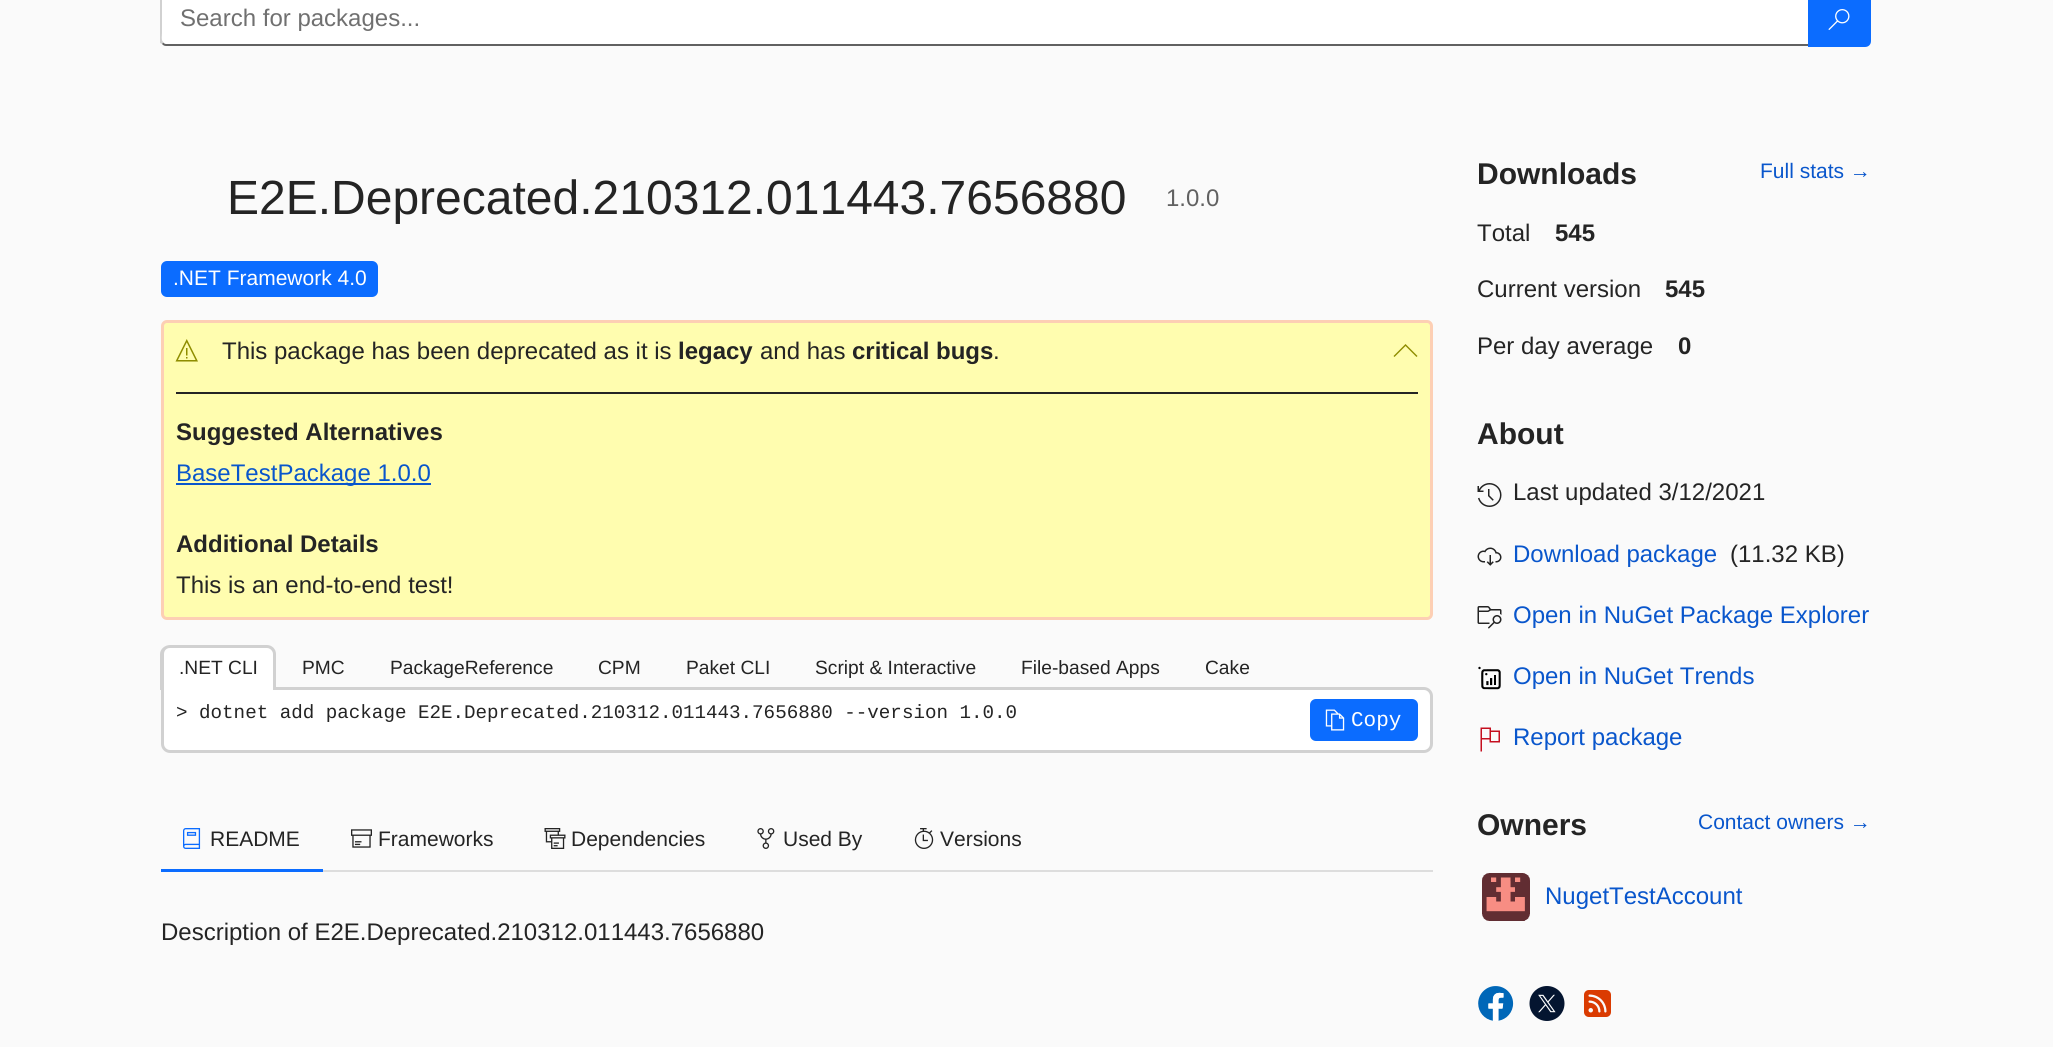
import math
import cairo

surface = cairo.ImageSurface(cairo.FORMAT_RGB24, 2053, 1047)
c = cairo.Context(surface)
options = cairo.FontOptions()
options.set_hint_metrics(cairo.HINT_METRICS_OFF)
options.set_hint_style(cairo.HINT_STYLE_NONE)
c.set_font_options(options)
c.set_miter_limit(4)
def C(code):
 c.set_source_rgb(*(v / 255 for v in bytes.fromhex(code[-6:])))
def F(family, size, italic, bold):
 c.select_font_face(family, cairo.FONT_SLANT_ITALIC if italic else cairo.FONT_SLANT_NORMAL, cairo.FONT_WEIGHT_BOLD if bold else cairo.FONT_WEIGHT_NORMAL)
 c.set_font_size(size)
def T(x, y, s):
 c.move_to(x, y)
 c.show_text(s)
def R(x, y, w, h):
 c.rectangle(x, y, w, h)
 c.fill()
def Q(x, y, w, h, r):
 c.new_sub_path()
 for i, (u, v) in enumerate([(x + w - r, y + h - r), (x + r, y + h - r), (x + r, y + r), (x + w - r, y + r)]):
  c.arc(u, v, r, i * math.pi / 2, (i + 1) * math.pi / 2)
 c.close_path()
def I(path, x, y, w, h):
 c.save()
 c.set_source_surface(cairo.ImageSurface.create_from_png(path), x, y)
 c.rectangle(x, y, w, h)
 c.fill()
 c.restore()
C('fafafa')
c.paint()
C('ffffff')
c.new_path()
c.move_to(166,-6)
c.line_to(1808,-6)
c.line_to(1808,44)
c.line_to(166,44)
c.curve_to(164,44,162,42,162,40)
c.line_to(162,-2)
c.curve_to(162,-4,164,-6,166,-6)
c.close_path()
c.fill()
C('616161')
c.new_path()
c.move_to(1809,46)
c.line_to(166,46)
c.curve_to(164,46,163,45,162,44)
c.line_to(163,42)
c.curve_to(163,43,165,44,166,44)
c.line_to(1808,44)
c.close_path()
c.fill()
C('d1d1d1')
c.new_path()
c.move_to(160,-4)
c.line_to(162,-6)
c.line_to(163,-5)
c.line_to(162,-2)
c.line_to(162,33)
c.curve_to(162,35,161,40,163,42)
c.line_to(162,44)
c.line_to(160,43)
c.close_path()
c.fill()
F('Liberation Sans',24,0,0)
C('707070')
T(180,26,'Search for packages...')
C('0b6cff')
c.new_path()
c.move_to(1808,-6)
c.line_to(1865,-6)
c.curve_to(1868.5,-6,1871,-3.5,1871,0)
c.line_to(1871,41)
c.curve_to(1871,44.5,1868.5,47,1865,47)
c.line_to(1808,47)
c.close_path()
c.fill()
I('1.png',1828,9,22,21)
F('Liberation Sans',48,0,0)
C('242424')
T(227,214,'E2E.Deprecated.210312.011443.7656880')
F('Liberation Sans',24,0,0)
C('616161')
T(1166,206,'1.0.0')
C('0b6cff')
Q(161,261,217,36,6)
c.fill()
F('Liberation Sans',21,0,0)
C('ffffff')
T(173,285,'.NET Framework 4.0')
C('fffdaf')
Q(162.5,321.5,1269,297,4.5)
c.fill_preserve()
C('fdcfb4')
c.set_line_width(3)
c.stroke()
I('2.png',175,339,23,23)
F('Liberation Sans',24,0,0)
C('242424')
T(222,359,'This package has been deprecated as it is')
F('Liberation Sans',24,0,1)
T(678,359,'legacy')
F('Liberation Sans',24,0,0)
T(760,359,'and has')
F('Liberation Sans',24,0,1)
T(852,359,'critical bugs')
F('Liberation Sans',24,0,0)
T(993,359,'.')
C('8f8d00')
c.new_path()
c.move_to(1416.5,357)
c.line_to(1405.5,346)
c.line_to(1394.5,357)
c.line_to(1393.5,356)
c.line_to(1405.5,344)
c.line_to(1417.5,356)
c.close_path()
c.fill()
C('242424')
R(176,392,1242,2)
F('Liberation Sans',24,0,1)
T(176,440,'Suggested Alternatives')
C('0956cc')
R(176,483,255,2)
F('Liberation Sans',24,0,0)
T(176,481,'BaseTestPackage 1.0.0')
F('Liberation Sans',24,0,1)
C('242424')
T(176,552,'Additional Details')
F('Liberation Sans',24,0,0)
T(176,593,'This is an end-to-end test!')
C('ffffff')
c.new_path()
c.move_to(162.5,688.5)
c.line_to(1424,688.5)
c.curve_to(1428,688.5,1431.5,692,1431.5,696)
c.line_to(1431.5,744)
c.curve_to(1431.5,748,1428,751.5,1424,751.5)
c.line_to(170,751.5)
c.curve_to(166,751.5,162.5,748,162.5,744)
c.close_path()
c.fill_preserve()
C('d1d1d1')
c.stroke()
C('ffffff')
c.new_path()
c.move_to(170,645)
c.line_to(267,645)
c.curve_to(272,645,276,649,276,654)
c.line_to(276,690)
c.line_to(161,690)
c.line_to(161,654)
c.curve_to(161,649,165,645,170,645)
c.close_path()
c.fill()
C('d1d1d1')
c.set_fill_rule(cairo.FILL_RULE_EVEN_ODD)
c.new_path()
c.move_to(170,645)
c.line_to(267,645)
c.curve_to(272,645,276,649,276,654)
c.line_to(276,690)
c.line_to(160,690)
c.line_to(160,654)
c.curve_to(160,649,165,645,170,645)
c.close_path()
c.move_to(170,648)
c.line_to(267,648)
c.curve_to(270,648,273,651,273,654)
c.line_to(273,690)
c.line_to(164,690)
c.line_to(164,654)
c.curve_to(164,651,166,648,170,648)
c.close_path()
c.fill()
F('Liberation Sans',19.2,0,0)
C('242424')
T(179,674,'.NET CLI')
T(302,674,'PMC')
T(390,674,'PackageReference')
T(598,674,'CPM')
T(686,674,'Paket CLI')
T(815,674,'Script & Interactive')
T(1021,674,'File-based Apps')
T(1205,674,'Cake')
F('Liberation Mono',19.2,0,0)
T(176,718,'> dotnet add package E2E.Deprecated.210312.011443.7656880 --version 1.0.0')
C('0b6cff')
Q(1310,699,108,42,6)
c.fill()
I('3.png',1325,709,20,22)
F('Liberation Mono',21,0,0)
C('ffffff')
T(1351,726,'Copy')
C('dddddd')
R(323,870,1110,2)
C('0b6cff')
R(161,869,162,3)
I('4.png',183,828,18,21)
F('Liberation Sans',21,0,0)
C('242424')
T(210,846,'README')
I('5.png',351,829,21,19)
T(378,846,'Frameworks')
I('6.png',544,828,22,21)
T(571,846,'Dependencies')
I('7.png',757,828,18,21)
T(783,846,'Used By')
I('8.png',914,828,20,21)
T(940,846,'Versions')
F('Liberation Sans',24,0,0)
T(161,940,'Description of E2E.Deprecated.210312.011443.7656880')
F('Liberation Sans',30,0,1)
T(1477,184,'Downloads')
F('Liberation Sans',21,0,0)
C('0956cc')
T(1760,178,'Full stats →')
F('Liberation Sans',24,0,0)
C('242424')
T(1477,241,'Total')
F('Liberation Sans',24,0,1)
T(1555,241,'545')
F('Liberation Sans',24,0,0)
T(1477,297,'Current version')
F('Liberation Sans',24,0,1)
T(1665,297,'545')
F('Liberation Sans',24,0,0)
T(1477,354,'Per day average')
F('Liberation Sans',24,0,1)
T(1678,354,'0')
F('Liberation Sans',30,0,1)
T(1477,444,'About')
I('9.png',1477,483,25,24)
F('Liberation Sans',24,0,0)
T(1513,500,'Last updated 3/12/2021')
I('10.png',1477,547,25,19)
C('0956cc')
T(1513,562,'Download package')
C('242424')
T(1730,562,'(11.32 KB)')
I('11.png',1477,606,25,23)
C('0956cc')
T(1513,623,'Open in NuGet Package Explorer')
I('12.png',1478,666,23,24)
T(1513,684,'Open in NuGet Trends')
I('13.png',1480,727,20,25)
T(1513,745,'Report package')
F('Liberation Sans',30,0,1)
C('242424')
T(1477,835,'Owners')
F('Liberation Sans',21,0,0)
C('0956cc')
T(1698,829,'Contact owners →')
I('14.png',1482,873,48,48)
F('Liberation Sans',24,0,0)
T(1545,904,'NugetTestAccount')
I('15.png',1478,986,36,35)
I('16.png',1529,986,36,35)
I('17.png',1584,990,27,27)
surface.write_to_png('o.png')
